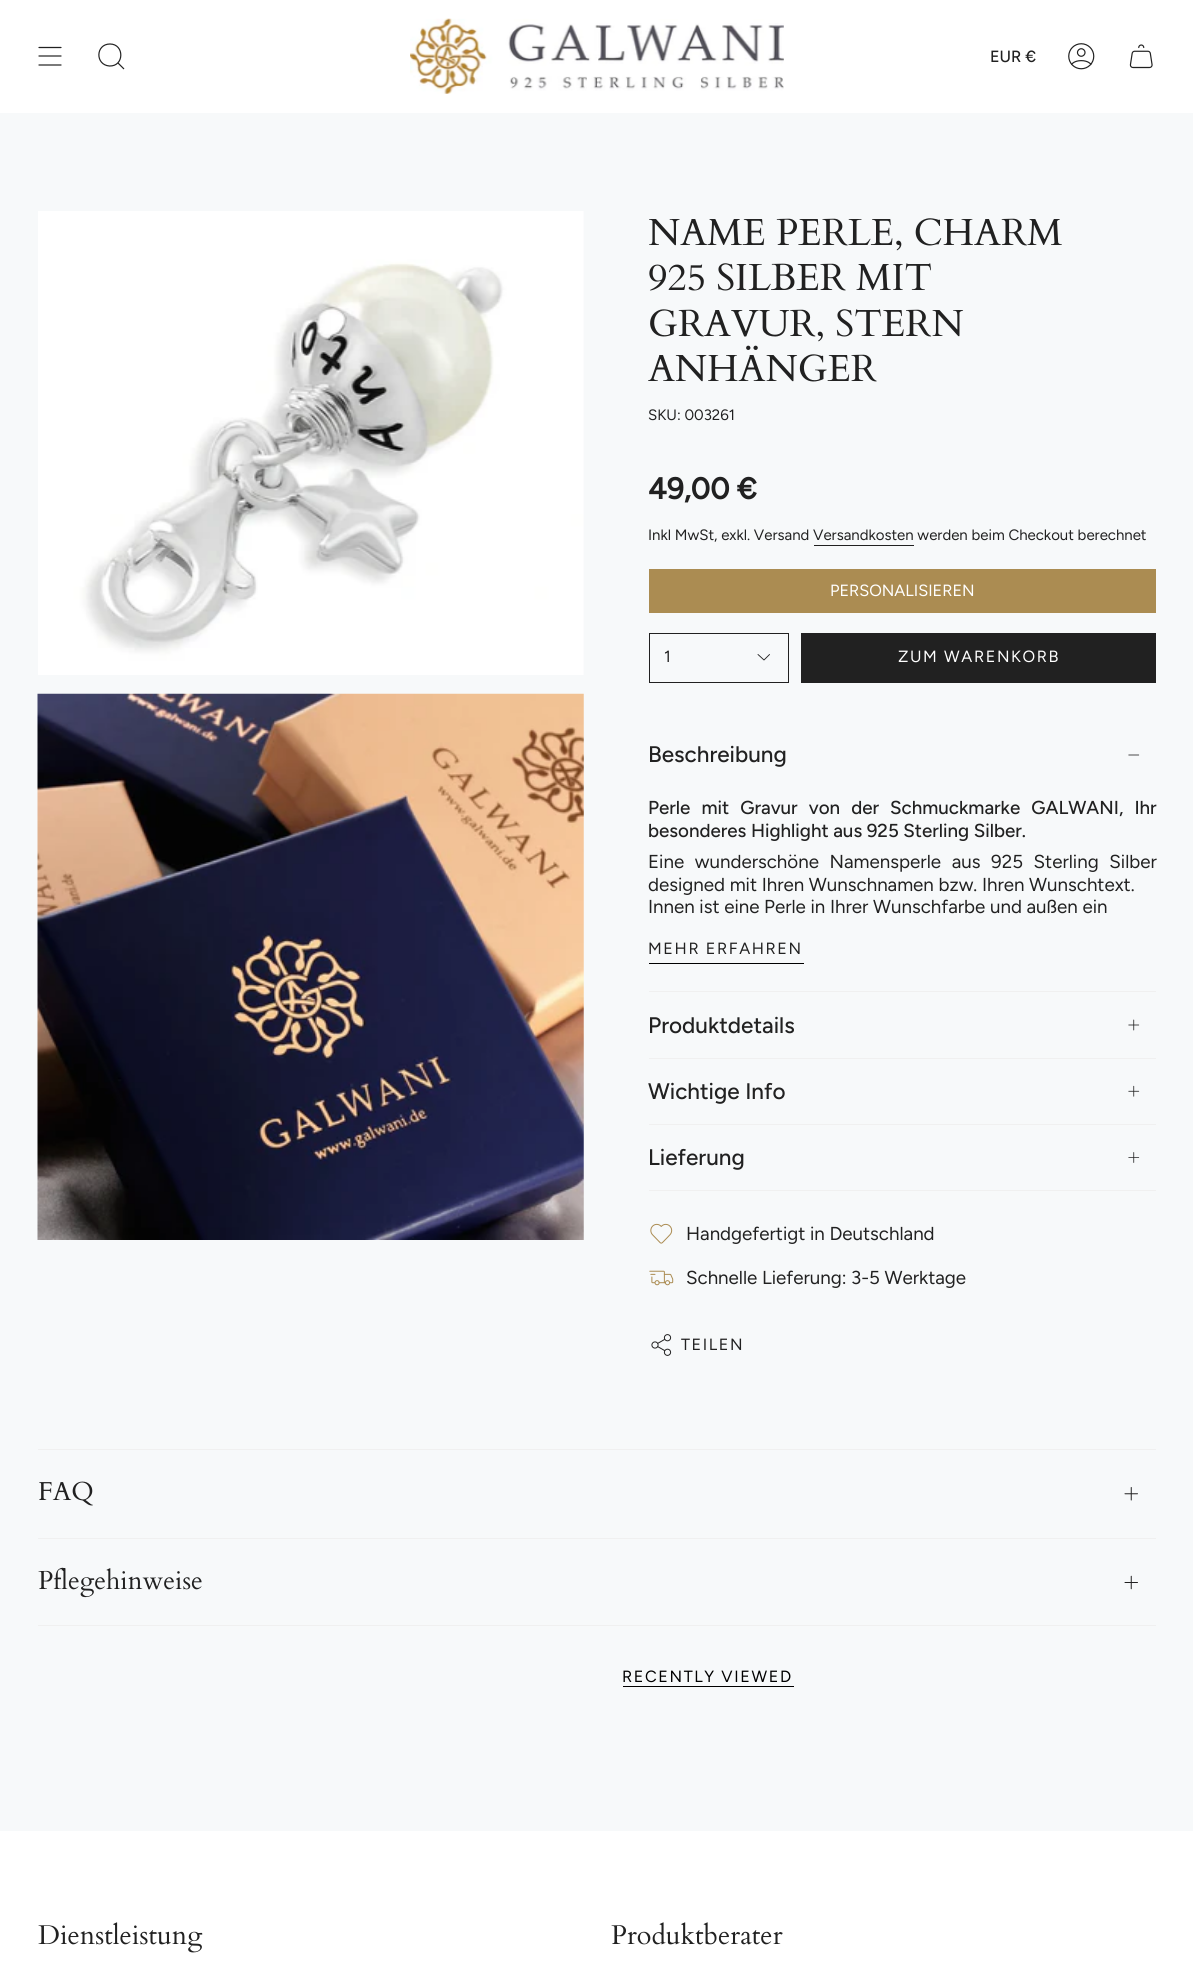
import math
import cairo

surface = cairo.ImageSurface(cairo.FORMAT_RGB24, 1193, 1979)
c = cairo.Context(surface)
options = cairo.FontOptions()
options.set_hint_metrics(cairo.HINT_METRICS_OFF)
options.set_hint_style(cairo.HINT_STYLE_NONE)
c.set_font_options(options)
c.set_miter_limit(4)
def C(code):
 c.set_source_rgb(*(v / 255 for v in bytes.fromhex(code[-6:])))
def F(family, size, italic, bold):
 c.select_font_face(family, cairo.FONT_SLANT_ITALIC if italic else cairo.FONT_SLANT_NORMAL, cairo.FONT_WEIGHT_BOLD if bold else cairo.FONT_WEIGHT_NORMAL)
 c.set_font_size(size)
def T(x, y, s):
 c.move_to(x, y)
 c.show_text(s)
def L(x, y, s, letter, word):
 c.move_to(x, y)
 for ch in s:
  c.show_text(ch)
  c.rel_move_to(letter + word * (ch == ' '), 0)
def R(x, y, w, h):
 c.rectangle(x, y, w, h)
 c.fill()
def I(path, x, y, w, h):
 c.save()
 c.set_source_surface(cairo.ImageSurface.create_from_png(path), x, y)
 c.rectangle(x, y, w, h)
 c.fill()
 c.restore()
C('f7f9fa')
c.paint()
C('ffffff')
R(0,0,1193,113)
c.new_path()
c.move_to(39,47.5)
c.line_to(61,47.5)
c.move_to(39,56)
c.line_to(61,56)
c.move_to(39,65)
c.line_to(61,65)
C('212121')
c.set_line_width(1.2)
c.set_line_cap(cairo.LINE_CAP_ROUND)
c.set_line_join(cairo.LINE_JOIN_ROUND)
c.stroke()
c.new_path()
c.move_to(110,44)
c.curve_to(124.5,44,124.5,66.5,109.5,66)
c.curve_to(95,65,95.5,44,110,44)
c.close_path()
c.move_to(117.5,62.5)
c.line_to(124,69)
c.set_line_cap(cairo.LINE_CAP_BUTT)
c.set_line_join(cairo.LINE_JOIN_MITER)
c.stroke()
I('1.png',410,18,374,76)
F('Figtree Medium',16.25,0,0)
T(990,62,'EUR €')
I('2.png',1068,43,27,27)
I('3.png',1129,44,24,25)
I('4.png',38,211,546,464)
I('5.png',37,693,547,547)
F('Cardo',37.75,0,0)
T(648,245,'NAME PERLE, CHARM')
T(648,290,'925 SILBER MIT')
T(648,336,'GRAVUR, STERN')
T(648,381,'ANHÄNGER')
F('Figtree',15,0,0)
T(648,420,'SKU: 003261')
F('Figtree',30,0,1)
T(648,499,'49,00 €')
F('Figtree',15,0,0)
T(648,540,'Inkl MwSt, exkl. Versand Versandkosten werden beim Checkout berechnet')
R(814,545,100,1)
C('ab8c52')
R(649,569,507,44)
F('Figtree',16.25,0,0)
C('ffffff')
T(830,596,'PERSONALISIEREN')
c.rectangle(649.5,633.5,139,49)
C('212121')
c.set_line_width(1)
c.stroke()
T(664,662,'1')
c.new_path()
c.move_to(758,654.5)
c.line_to(764,660)
c.line_to(769.5,654.5)
c.set_line_width(.9)
c.set_line_cap(cairo.LINE_CAP_ROUND)
c.set_line_join(cairo.LINE_JOIN_ROUND)
c.stroke()
R(801,633,355,50)
C('ffffff')
L(898,662,'ZUM WARENKORB',1.6,0)
C('f0f0f0')
R(649,1190,507,1)
F('Figtree Medium',22.5,0,0)
C('212121')
T(648,762,'Beschreibung')
I('6.png',1128,754,12,2)
F('Figtree Medium',18.75,0,0)
L(648,814,'Perle mit Gravur von der Schmuckmarke GALWANI, Ihr',0,6.5)
T(648,837,'besonderes Highlight aus 925 Sterling Silber.')
F('Figtree',18.75,0,0)
L(648,868,'Eine wunderschöne Namensperle aus 925 Sterling Silber',0,6)
T(648,891,'designed mit Ihren Wunschnamen bzw. Ihren Wunschtext.')
T(648,913,'Innen ist eine Perle in Ihrer Wunschfarbe und außen ein')
C('000000')
R(649,963,155,1)
F('Figtree',16.25,0,0)
C('212121')
L(648,954,'MEHR ERFAHREN',1.6,0)
C('f0f0f0')
R(649,991,507,1)
F('Figtree Medium',22.5,0,0)
C('212121')
T(648,1033,'Produktdetails')
I('7.png',1128,1019,12,12)
C('f0f0f0')
R(649,1058,507,1)
C('212121')
T(648,1099,'Wichtige Info')
I('8.png',1128,1085,12,12)
C('f0f0f0')
R(649,1124,507,1)
C('212121')
T(648,1165,'Lieferung')
I('9.png',1128,1152,12,11)
I('10.png',650,1223,23,21)
F('Figtree',18.75,0,0)
T(686,1240,'Handgefertigt in Deutschland')
I('11.png',649,1270,25,16)
T(686,1284,'Schnelle Lieferung: 3-5 Werktage')
I('12.png',651,1334,21,22)
F('Figtree',16.25,0,0)
L(681,1350,'TEILEN',1.6,0)
C('f0f0f0')
R(38,1449,1118,1)
F('Cardo',26,0,0)
C('212121')
T(38,1500,'FAQ')
I('13.png',1124,1487,14,14)
C('f0f0f0')
R(38,1538,1118,1)
R(38,1625,1118,1)
C('212121')
T(38,1589,'Pflegehinweise')
I('14.png',1124,1575,14,15)
F('Figtree',16.25,0,0)
C('000000')
L(622,1682,'RECENTLY VIEWED',1.6,0)
R(623,1686,171,1)
C('ffffff')
R(0,1831,1193,148)
F('Cardo',27,0,0)
C('212121')
T(38,1944,'Dienstleistung')
T(611,1944,'Produktberater')
surface.write_to_png('o.png')
